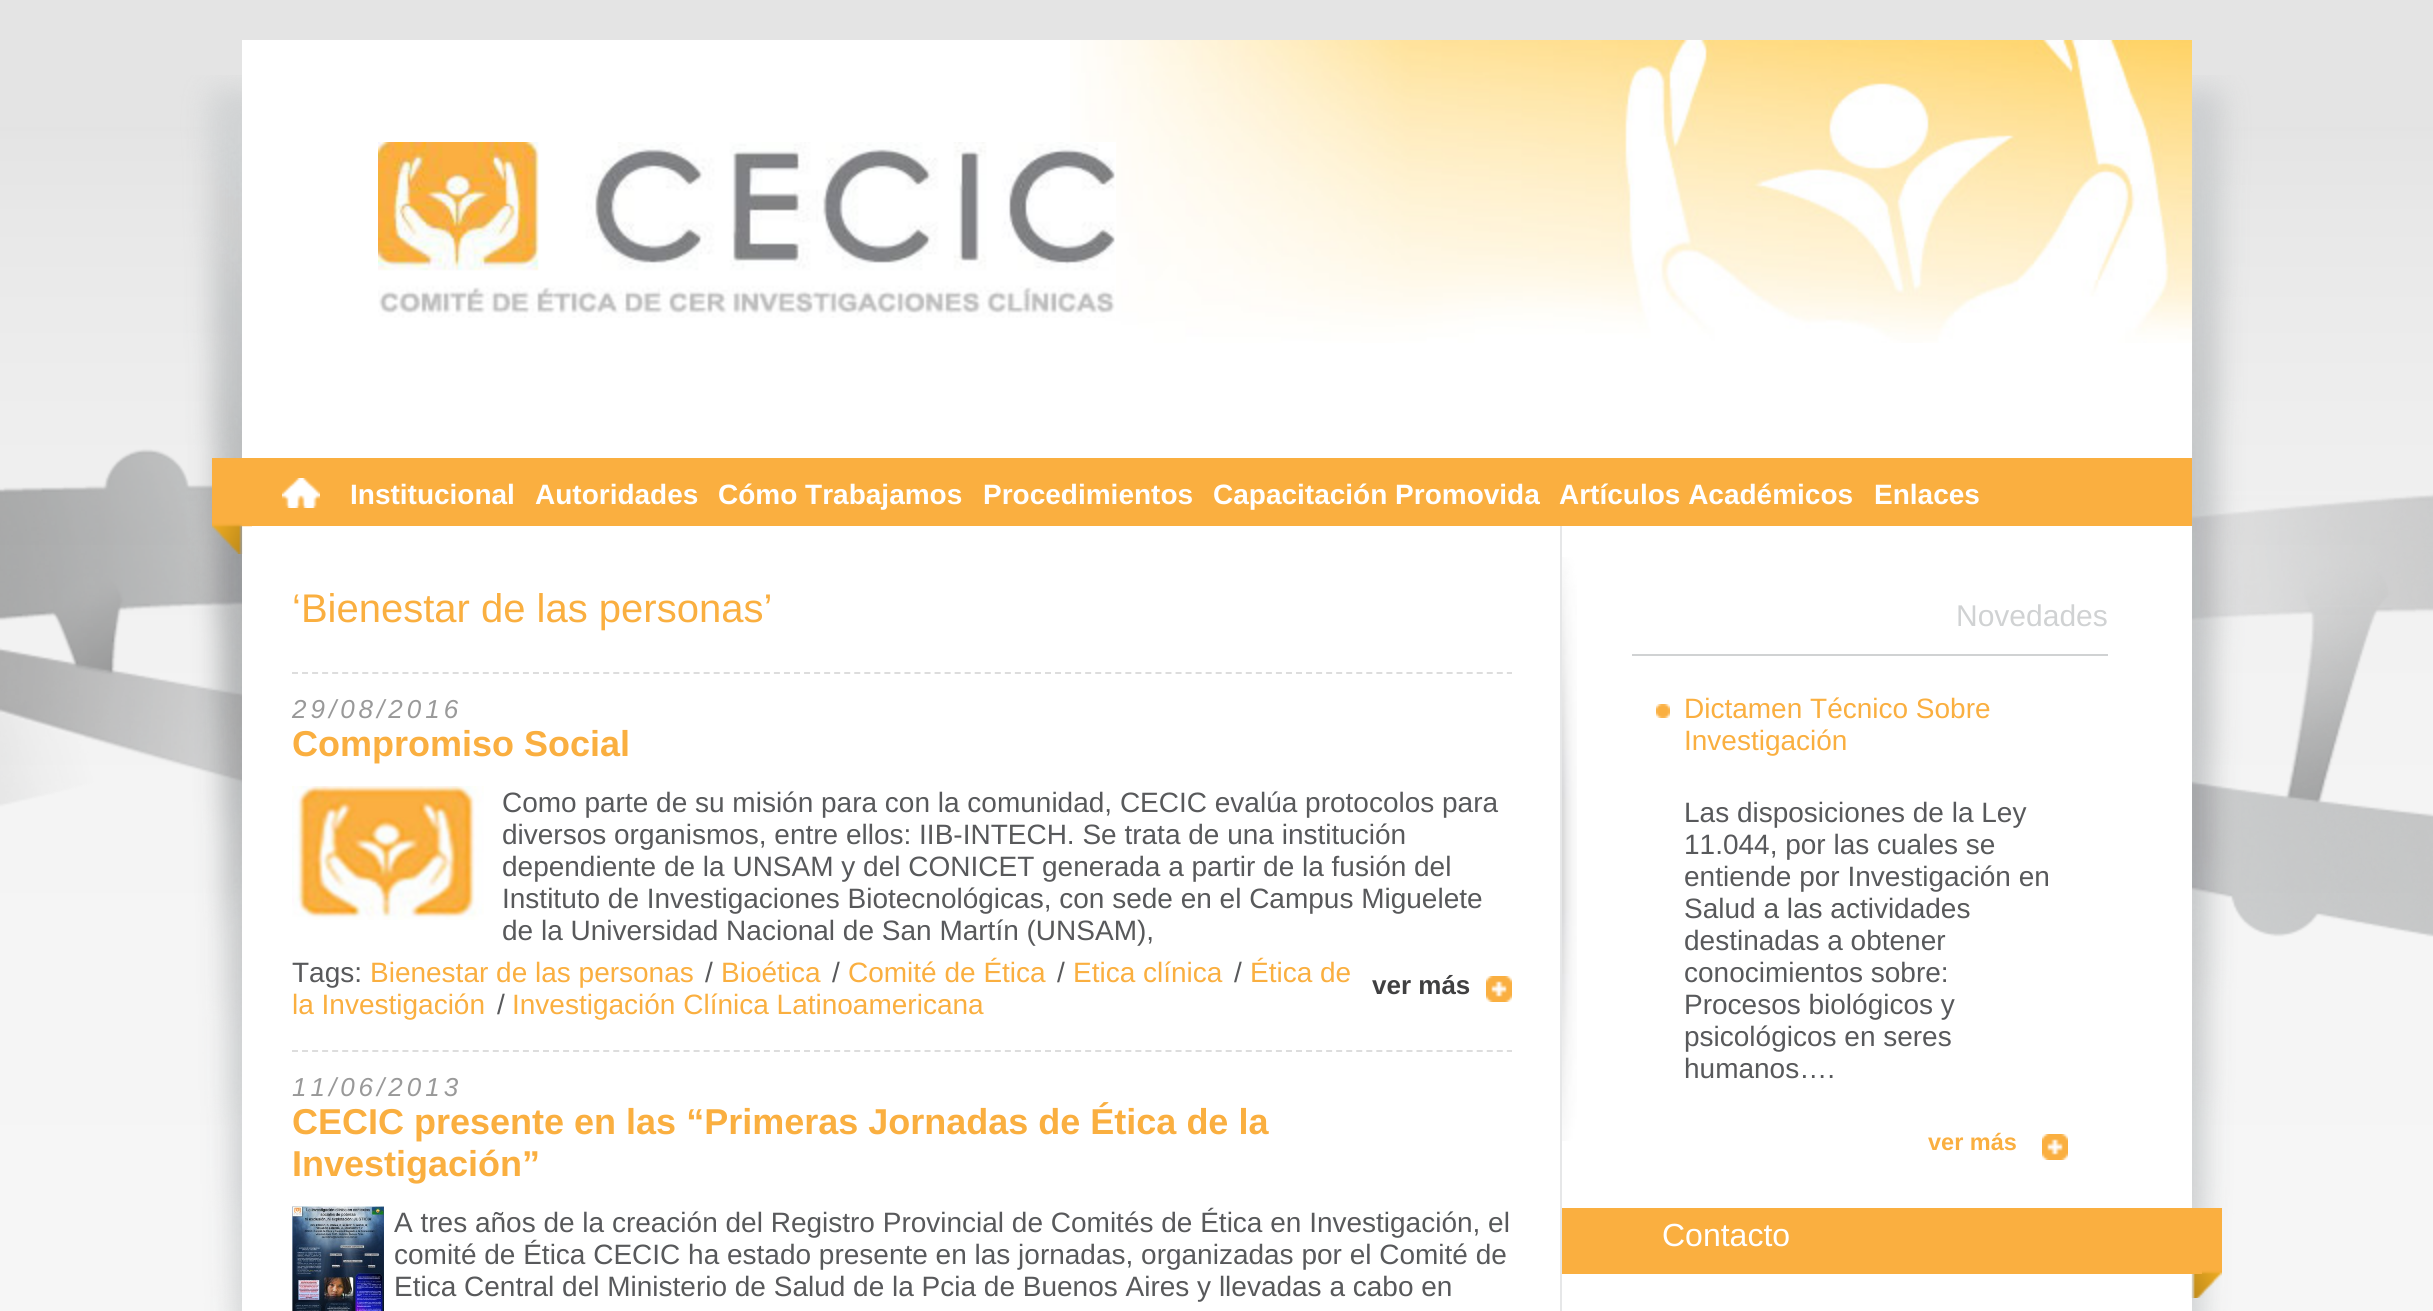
import math
import cairo

surface = cairo.ImageSurface(cairo.FORMAT_RGB24, 2433, 1311)
c = cairo.Context(surface)
options = cairo.FontOptions()
options.set_hint_metrics(cairo.HINT_METRICS_OFF)
options.set_hint_style(cairo.HINT_STYLE_NONE)
c.set_font_options(options)
c.set_miter_limit(4)
def C(code):
 c.set_source_rgb(*(v / 255 for v in bytes.fromhex(code[-6:])))
def F(family, size, italic, bold):
 c.select_font_face(family, cairo.FONT_SLANT_ITALIC if italic else cairo.FONT_SLANT_NORMAL, cairo.FONT_WEIGHT_BOLD if bold else cairo.FONT_WEIGHT_NORMAL)
 c.set_font_size(size)
def T(x, y, s):
 c.move_to(x, y)
 c.show_text(s)
def L(x, y, s, letter, word):
 c.move_to(x, y)
 for ch in s:
  c.show_text(ch)
  c.rel_move_to(letter + word * (ch == ' '), 0)
def R(x, y, w, h):
 c.rectangle(x, y, w, h)
 c.fill()
def I(path, x, y, w, h):
 c.save()
 c.set_source_surface(cairo.ImageSurface.create_from_png(path), x, y)
 c.rectangle(x, y, w, h)
 c.fill()
 c.restore()
C('ffffff')
c.paint()
I('1.png',0,0,2433,1311)
I('2.png',0,75,2433,1236)
C('ffffff')
R(242,40,1950,1271)
I('3.png',1070,40,1122,303)
I('4.png',378,142,738,176)
I('5.png',212,458,40,96)
C('faaf40')
R(242,458,1950,68)
I('6.png',282,478,38,30)
F('Liberation Sans',28,0,1)
C('ffffff')
T(350,504,'Institucional')
T(535,504,'Autoridades')
T(718,504,'Cómo Trabajamos')
T(983,504,'Procedimientos')
T(1213,504,'Capacitación Promovida')
T(1559,504,'Artículos Académicos')
T(1874,504,'Enlaces')
F('Liberation Sans',40,0,0)
C('faaf40')
T(292,622,'‘Bienestar de las personas’')
c.new_path()
c.move_to(292,673)
c.line_to(1512,673)
C('dddddd')
c.set_dash([6,4.04])
c.stroke()
F('Liberation Sans',26,1,0)
C('999999')
L(292,718,'29/08/2016',4,0)
F('Liberation Sans',36,0,1)
C('faaf40')
T(292,756,'Compromiso Social')
I('7.png',292,786,192,134)
F('Liberation Sans',28,0,0)
C('58595b')
T(502,812,'Como parte de su misión para con la comunidad, CECIC evalúa protocolos para')
T(502,844,'diversos organismos, entre ellos: IIB-INTECH. Se trata de una institución')
T(502,876,'dependiente de la UNSAM y del CONICET generada a partir de la fusión del')
T(502,908,'Instituto de Investigaciones Biotecnológicas, con sede en el Campus Miguelete')
T(502,940,'de la Universidad Nacional de San Martín (UNSAM),')
T(292,982,'Tags:')
C('faaf40')
T(370,982,'Bienestar de las personas')
C('58595b')
T(705,982,'/')
C('faaf40')
T(721,982,'Bioética')
C('58595b')
T(832,982,'/')
C('faaf40')
T(848,982,'Comité de Ética')
C('58595b')
T(1057,982,'/')
C('faaf40')
T(1073,982,'Etica clínica')
C('58595b')
T(1234,982,'/')
C('faaf40')
T(1250,982,'Ética de')
T(292,1014,'la Investigación')
C('58595b')
T(497,1014,'/')
C('faaf40')
T(512,1014,'Investigación Clínica Latinoamericana')
I('8.png',1486,976,26,26)
F('Liberation Sans',26,0,1)
C('404041')
T(1372,994,'ver más')
c.new_path()
c.move_to(292,1051)
c.line_to(1512,1051)
C('dddddd')
c.stroke()
F('Liberation Sans',26,1,0)
C('999999')
L(292,1096,'11/06/2013',4,0)
F('Liberation Sans',36,0,1)
C('faaf40')
T(292,1134,'CECIC presente en las “Primeras Jornadas de Ética de la')
T(292,1176,'Investigación”')
I('9.png',292,1206,92,105)
F('Liberation Sans',28,0,0)
C('58595b')
T(394,1232,'A tres años de la creación del Registro Provincial de Comités de Ética en Investigación, el')
T(394,1264,'comité de Ética CECIC ha estado presente en las jornadas, organizadas por el Comité de')
T(394,1296,'Etica Central del Ministerio de Salud de la Pcia de Buenos Aires y llevadas a cabo en')
I('10.png',1562,557,15,584)
C('e6e7e8')
R(1560,526,2,785)
C('d0d2d3')
R(1632,654,476,2)
F('Liberation Sans',30,0,0)
T(1956,626,'Novedades')
I('11.png',1656,704,14,14)
F('Liberation Sans',28,0,0)
C('faaf40')
T(1684,718,'Dictamen Técnico Sobre')
T(1684,750,'Investigación')
C('58595b')
T(1684,822,'Las disposiciones de la Ley')
T(1684,854,'11.044, por las cuales se')
T(1684,886,'entiende por Investigación en')
T(1684,918,'Salud a las actividades')
T(1684,950,'destinadas a obtener')
T(1684,982,'conocimientos sobre:')
T(1684,1014,'Procesos biológicos y')
T(1684,1046,'psicológicos en seres')
T(1684,1078,'humanos….')
I('8.png',2042,1134,26,26)
F('Liberation Sans',23.5,0,1)
C('faaf40')
T(1928,1150,'ver más')
I('12.png',2191,1208,31,90)
R(1562,1208,640,66)
F('Liberation Sans',32,0,0)
C('ffffff')
T(1662,1246,'Contacto')
surface.write_to_png('o.png')
